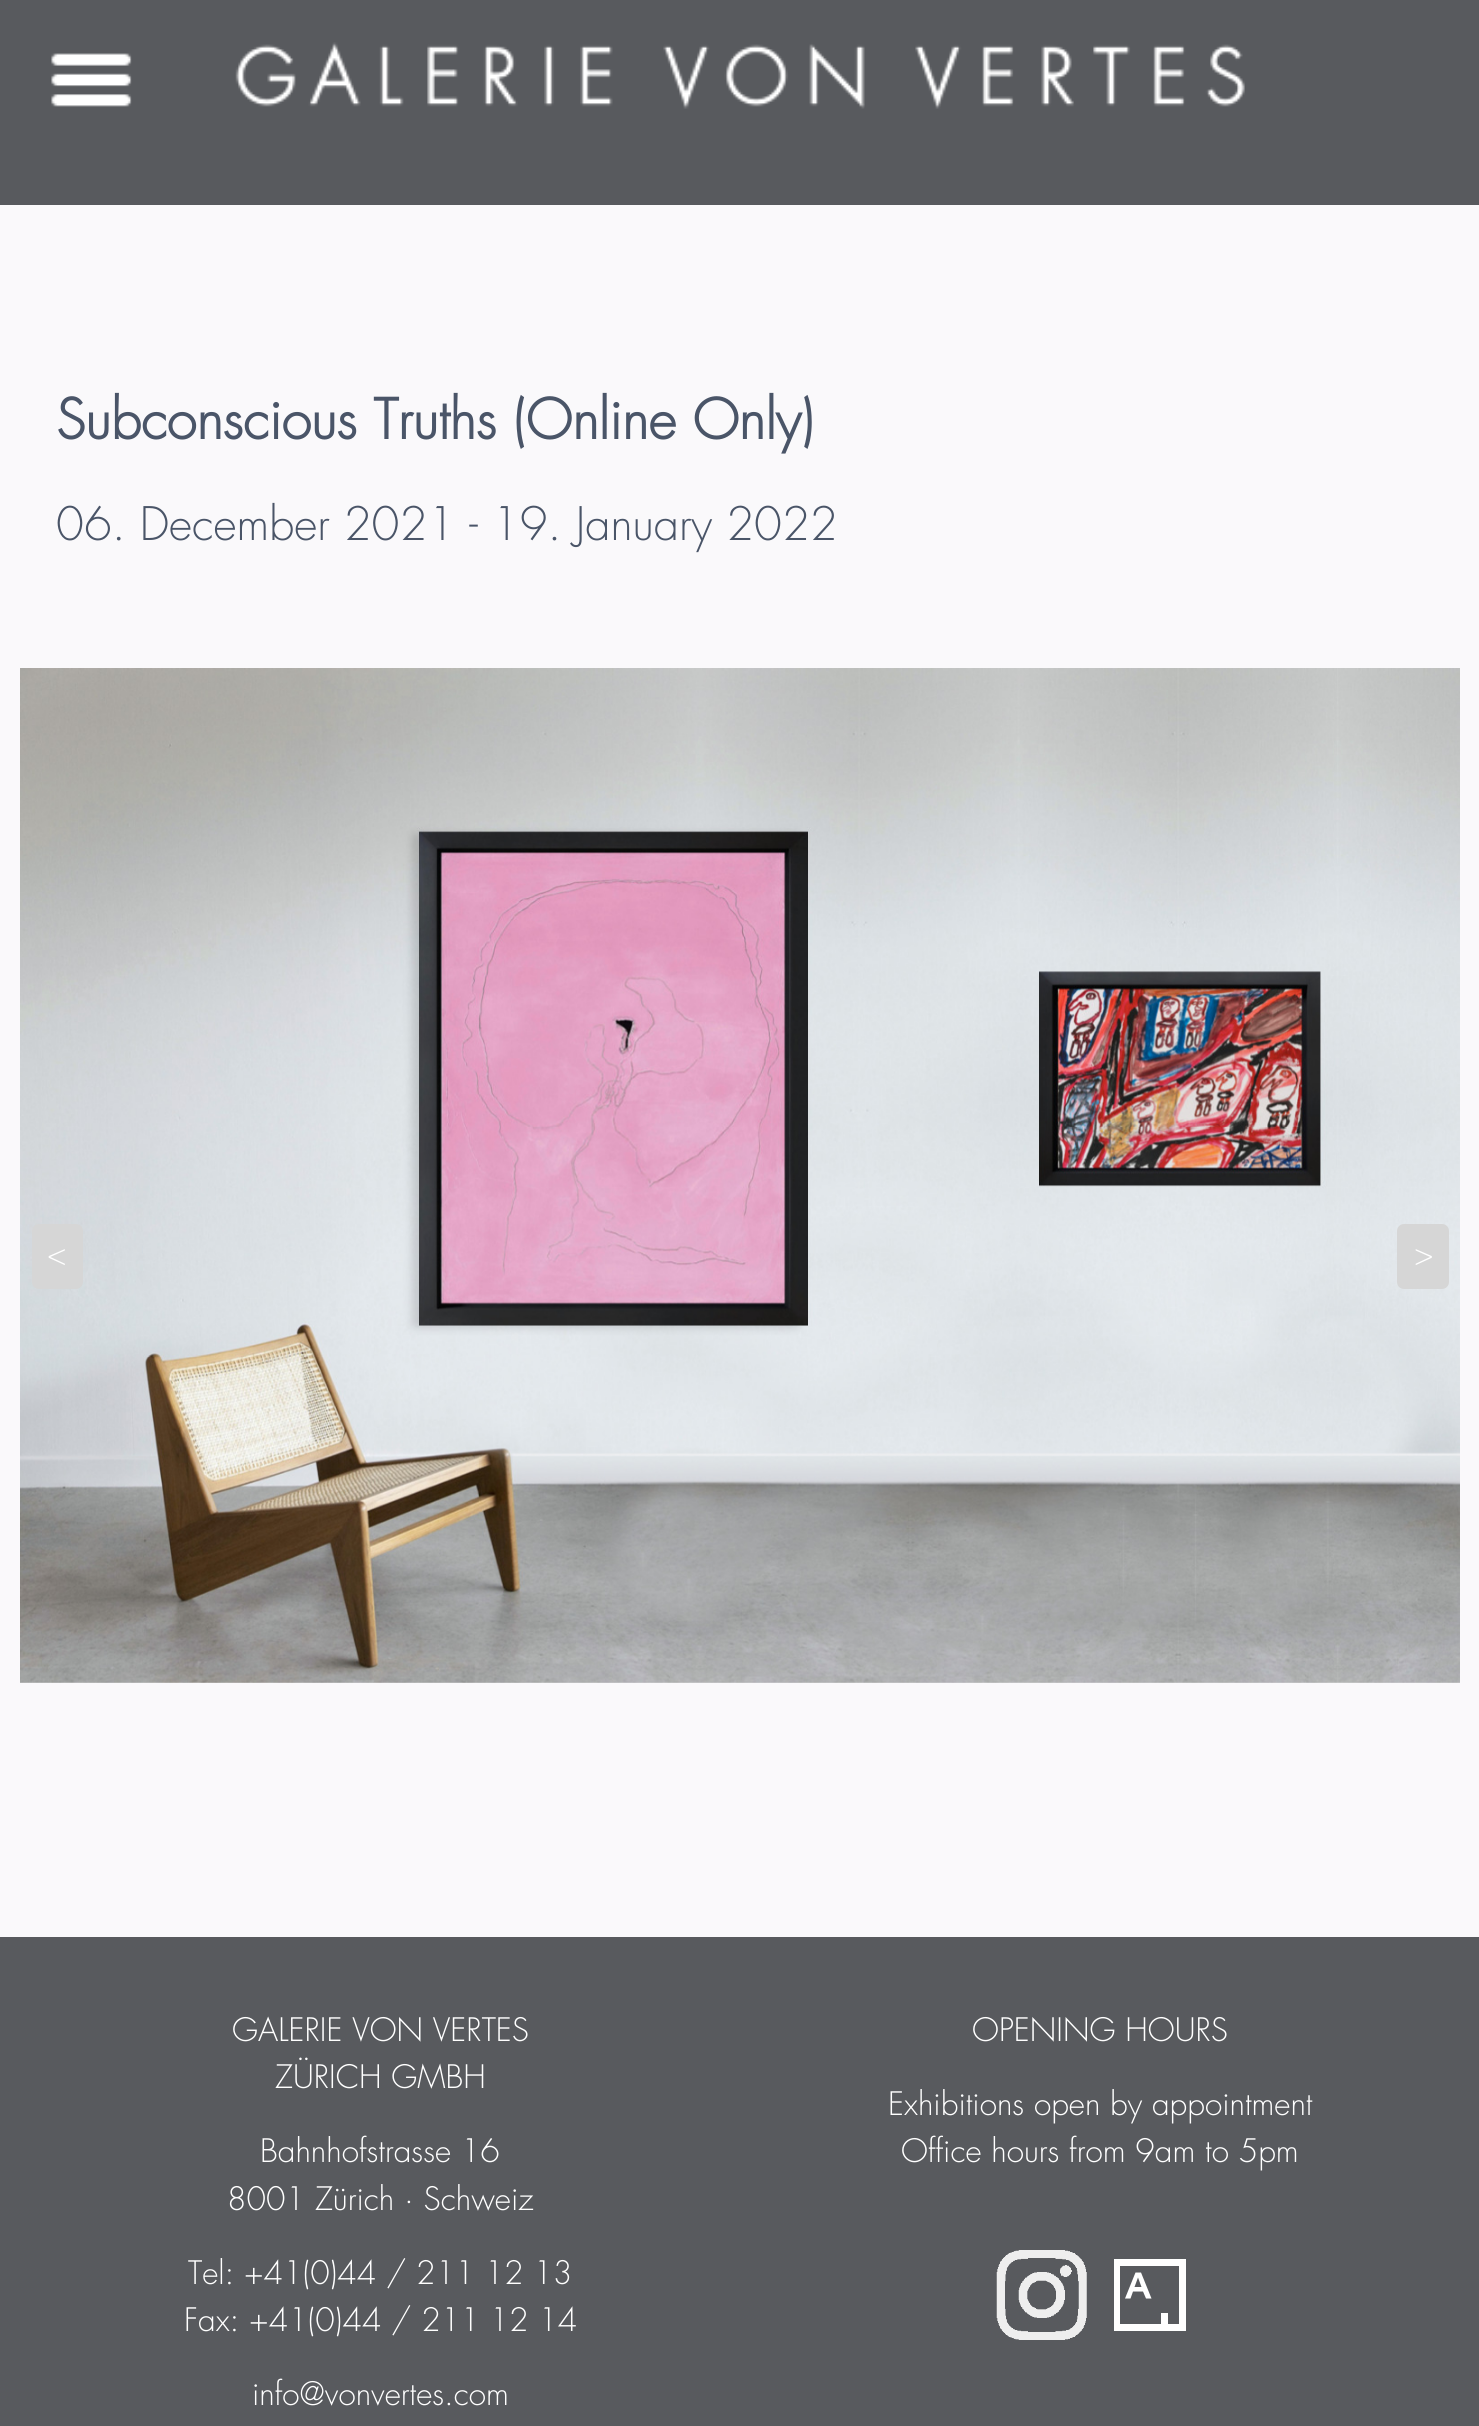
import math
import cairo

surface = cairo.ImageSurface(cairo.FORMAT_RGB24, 1479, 2426)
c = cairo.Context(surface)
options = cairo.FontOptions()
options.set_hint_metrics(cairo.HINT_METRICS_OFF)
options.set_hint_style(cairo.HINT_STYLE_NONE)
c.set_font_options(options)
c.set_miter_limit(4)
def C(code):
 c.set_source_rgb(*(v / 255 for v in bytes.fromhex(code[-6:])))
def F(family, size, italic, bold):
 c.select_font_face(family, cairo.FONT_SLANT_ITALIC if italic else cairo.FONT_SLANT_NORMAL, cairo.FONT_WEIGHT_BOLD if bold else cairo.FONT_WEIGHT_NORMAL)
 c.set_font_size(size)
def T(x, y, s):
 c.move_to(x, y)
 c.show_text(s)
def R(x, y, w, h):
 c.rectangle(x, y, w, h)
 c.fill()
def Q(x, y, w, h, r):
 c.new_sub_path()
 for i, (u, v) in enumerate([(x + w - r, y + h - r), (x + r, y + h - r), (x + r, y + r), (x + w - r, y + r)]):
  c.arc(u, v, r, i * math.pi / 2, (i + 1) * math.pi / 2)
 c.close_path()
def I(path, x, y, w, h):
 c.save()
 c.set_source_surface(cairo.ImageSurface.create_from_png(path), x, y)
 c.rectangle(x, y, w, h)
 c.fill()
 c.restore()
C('585a5e')
c.paint()
I('1.png',51,53,81,54)
I('2.png',235,42,1010,67)
C('faf9fb')
R(0,205,1479,1732)
F('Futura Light',54,0,1)
C('4a5568')
T(56,439,'Subconscious Truths (Online Only)')
F('Futura Light Light',45,0,0)
T(56,540,'06. December 2021 - 19. January 2022')
I('3.png',20,668,1440,1015)
C('d6d6d6')
Q(32,1224,51,65,7)
c.fill()
F('Futura Light Light',31.5,0,0)
C('ffffff')
T(47,1265,'<')
C('d6d6d6')
Q(1397,1224,52,65,7)
c.fill()
C('ffffff')
T(1414,1265,'>')
T(232,2041,'GALERIE VON VERTES')
T(275,2088,'ZÜRICH GMBH')
T(260,2162,'Bahnhofstrasse 16')
T(227,2210,'8001 Zürich · Schweiz')
T(188,2284,'Tel: +41(0)44 / 211 12 13')
T(184,2331,'Fax: +41(0)44 / 211 12 14')
T(252,2405,'info@vonvertes.com')
T(972,2041,'OPENING HOURS')
T(888,2115,'Exhibitions open by appointment')
T(901,2162,'Office hours from 9am to 5pm')
I('4.png',996,2250,91,90)
c.new_path()
c.move_to(1114,2331)
c.line_to(1186,2331)
c.line_to(1186,2259)
c.line_to(1114,2259)
c.close_path()
c.move_to(1179,2324)
c.line_to(1168,2324)
c.line_to(1168,2313)
c.line_to(1161,2313)
c.line_to(1161,2324)
c.line_to(1120,2324)
c.line_to(1120,2266)
c.line_to(1179,2266)
c.close_path()
c.fill()
c.new_path()
c.move_to(1141,2272.5)
c.line_to(1135.5,2272.5)
c.line_to(1125,2298.5)
c.line_to(1130.5,2298.5)
c.line_to(1133,2291.5)
c.line_to(1143,2291.5)
c.line_to(1146,2298.5)
c.line_to(1151.5,2298.5)
c.close_path()
c.move_to(1134.5,2287)
c.line_to(1138,2277.5)
c.line_to(1141.5,2287)
c.close_path()
c.fill()
surface.write_to_png('o.png')
